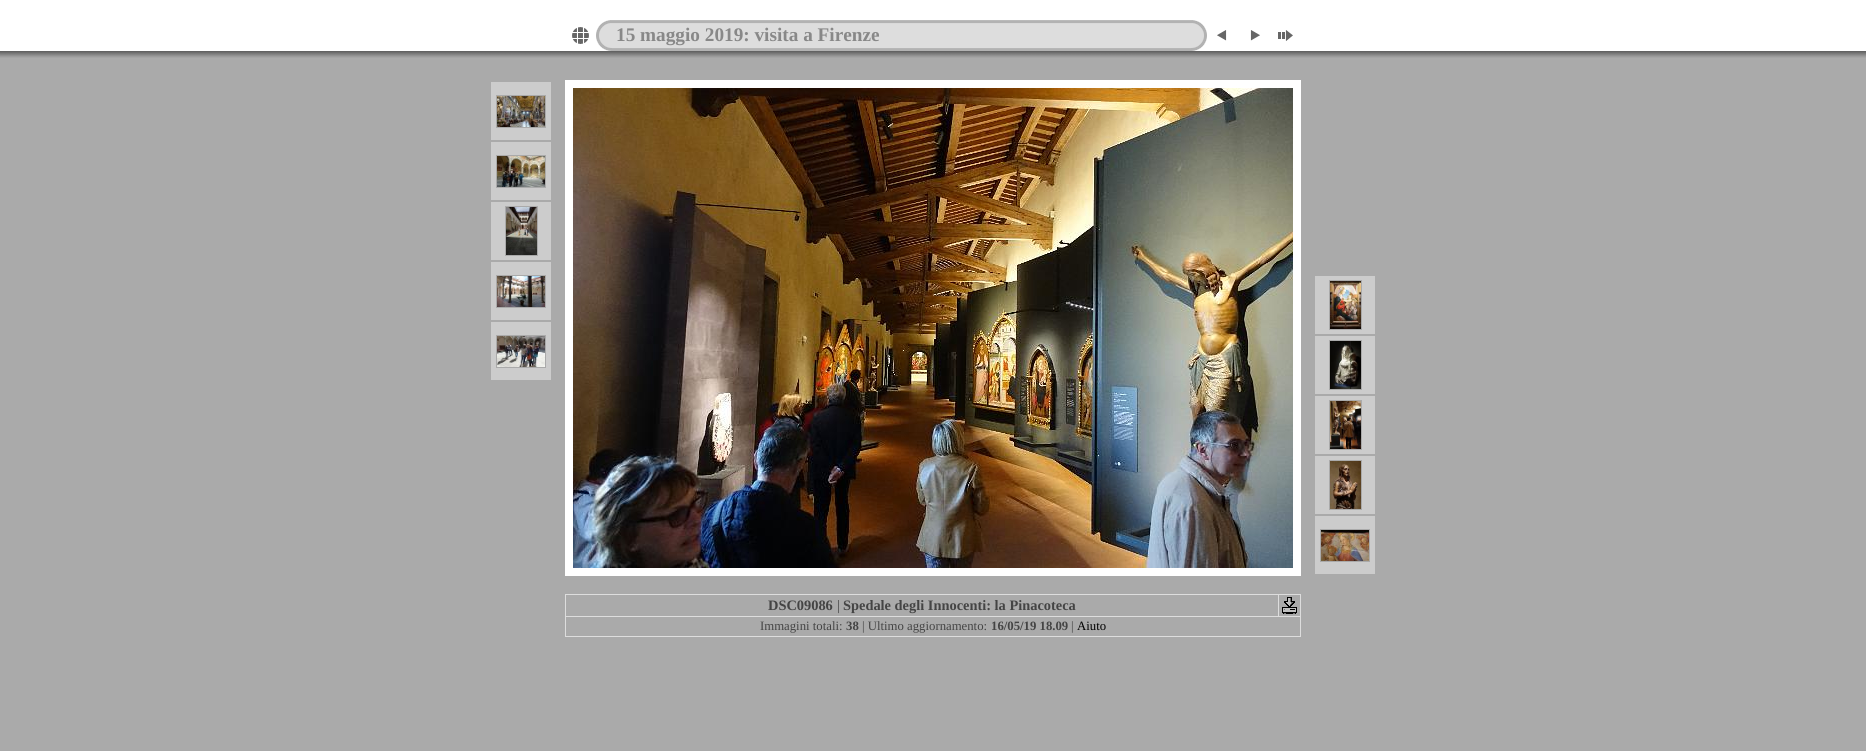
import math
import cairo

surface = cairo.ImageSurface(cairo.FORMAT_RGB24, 1866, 751)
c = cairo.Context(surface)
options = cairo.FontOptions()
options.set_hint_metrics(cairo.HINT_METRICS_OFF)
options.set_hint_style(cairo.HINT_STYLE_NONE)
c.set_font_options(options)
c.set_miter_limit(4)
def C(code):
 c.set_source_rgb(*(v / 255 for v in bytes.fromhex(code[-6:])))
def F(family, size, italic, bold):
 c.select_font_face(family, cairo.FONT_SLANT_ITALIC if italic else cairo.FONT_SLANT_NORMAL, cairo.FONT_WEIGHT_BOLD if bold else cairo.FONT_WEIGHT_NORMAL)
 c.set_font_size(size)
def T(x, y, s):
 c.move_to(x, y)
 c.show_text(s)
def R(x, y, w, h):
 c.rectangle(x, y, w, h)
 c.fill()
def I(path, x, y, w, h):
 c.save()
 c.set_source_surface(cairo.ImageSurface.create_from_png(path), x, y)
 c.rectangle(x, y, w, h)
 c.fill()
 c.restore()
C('aaaaaa')
c.paint()
I('1.png',0,0,1866,58)
I('2.png',572,27,17,17)
I('3.png',596,20,20,31)
I('4.png',616,20,572,31)
F('Liberation Serif',19.25,0,1)
C('888888')
T(616,41,'15 maggio 2019: visita a Firenze')
I('5.png',1188,20,19,31)
I('6.png',1217,30,10,11)
I('7.png',1250,30,10,11)
I('8.png',1278,30,15,11)
C('cccccc')
R(491,82,60,58)
c.rectangle(496.5,95.5,49,32)
C('aaaaaa')
c.set_line_width(1)
c.stroke()
I('9.png',497,96,48,31)
C('cccccc')
R(491,142,60,58)
c.rectangle(496.5,155.5,49,32)
C('aaaaaa')
c.stroke()
I('10.png',497,156,48,31)
C('cccccc')
R(491,202,60,58)
c.rectangle(505.5,206.5,32,49)
C('aaaaaa')
c.stroke()
I('11.png',506,207,31,48)
C('cccccc')
R(491,262,60,58)
c.rectangle(496.5,275.5,49,32)
C('aaaaaa')
c.stroke()
I('12.png',497,276,48,31)
C('cccccc')
R(491,322,60,58)
c.rectangle(496.5,335.5,49,32)
C('aaaaaa')
c.stroke()
I('13.png',497,336,48,31)
c.rectangle(569,84,728,488)
C('ffffff')
c.set_line_width(8)
c.stroke()
I('14.png',573,88,720,480)
C('cccccc')
R(1315,276,60,58)
c.rectangle(1329.5,280.5,32,49)
C('aaaaaa')
c.set_line_width(1)
c.stroke()
I('15.png',1330,281,31,48)
C('cccccc')
R(1315,336,60,58)
c.rectangle(1329.5,340.5,32,49)
C('aaaaaa')
c.stroke()
I('16.png',1330,341,31,48)
C('cccccc')
R(1315,396,60,58)
c.rectangle(1329.5,400.5,32,49)
C('aaaaaa')
c.stroke()
I('17.png',1330,401,31,48)
C('cccccc')
R(1315,456,60,58)
c.rectangle(1329.5,460.5,32,49)
C('aaaaaa')
c.stroke()
I('18.png',1330,461,31,48)
C('cccccc')
R(1315,516,60,58)
c.rectangle(1320.5,529.5,49,32)
C('aaaaaa')
c.stroke()
I('19.png',1321,530,48,31)
C('dddddd')
R(565,594,736,1)
R(1300,594,1,43)
R(565,636,736,1)
R(565,594,1,43)
F('Liberation Serif',14.4,0,1)
C('444444')
T(768,610,'DSC09086')
F('Liberation Serif',14.4,0,0)
T(837,610,'|')
F('Liberation Serif',14.4,0,1)
T(843,610,'Spedale degli Innocenti: la Pinacoteca')
C('dddddd')
R(565,616,736,1)
R(1278,594,1,23)
I('20.png',1282,597,15,17)
F('Liberation Serif',12.75,0,0)
C('444444')
T(760,630,'Immagini totali:')
F('Liberation Serif',12.75,0,1)
T(846,630,'38')
F('Liberation Serif',12.75,0,0)
T(862,630,'| Ultimo aggiornamento:')
F('Liberation Serif',12.75,0,1)
T(991,630,'16/05/19 18.09')
F('Liberation Serif',12.75,0,0)
T(1071,630,'|')
C('000000')
T(1077,630,'Aiuto')
surface.write_to_png('o.png')
